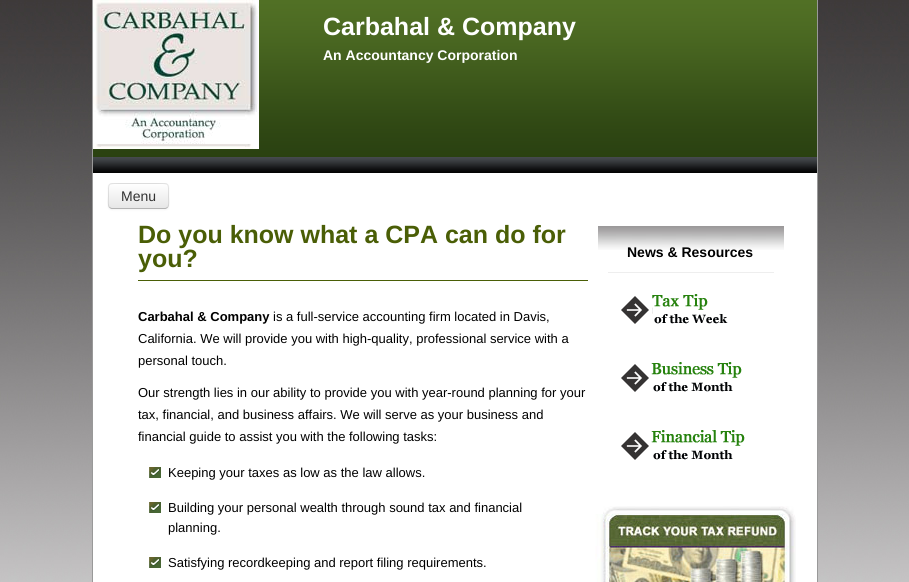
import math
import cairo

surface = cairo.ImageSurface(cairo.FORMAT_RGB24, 909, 582)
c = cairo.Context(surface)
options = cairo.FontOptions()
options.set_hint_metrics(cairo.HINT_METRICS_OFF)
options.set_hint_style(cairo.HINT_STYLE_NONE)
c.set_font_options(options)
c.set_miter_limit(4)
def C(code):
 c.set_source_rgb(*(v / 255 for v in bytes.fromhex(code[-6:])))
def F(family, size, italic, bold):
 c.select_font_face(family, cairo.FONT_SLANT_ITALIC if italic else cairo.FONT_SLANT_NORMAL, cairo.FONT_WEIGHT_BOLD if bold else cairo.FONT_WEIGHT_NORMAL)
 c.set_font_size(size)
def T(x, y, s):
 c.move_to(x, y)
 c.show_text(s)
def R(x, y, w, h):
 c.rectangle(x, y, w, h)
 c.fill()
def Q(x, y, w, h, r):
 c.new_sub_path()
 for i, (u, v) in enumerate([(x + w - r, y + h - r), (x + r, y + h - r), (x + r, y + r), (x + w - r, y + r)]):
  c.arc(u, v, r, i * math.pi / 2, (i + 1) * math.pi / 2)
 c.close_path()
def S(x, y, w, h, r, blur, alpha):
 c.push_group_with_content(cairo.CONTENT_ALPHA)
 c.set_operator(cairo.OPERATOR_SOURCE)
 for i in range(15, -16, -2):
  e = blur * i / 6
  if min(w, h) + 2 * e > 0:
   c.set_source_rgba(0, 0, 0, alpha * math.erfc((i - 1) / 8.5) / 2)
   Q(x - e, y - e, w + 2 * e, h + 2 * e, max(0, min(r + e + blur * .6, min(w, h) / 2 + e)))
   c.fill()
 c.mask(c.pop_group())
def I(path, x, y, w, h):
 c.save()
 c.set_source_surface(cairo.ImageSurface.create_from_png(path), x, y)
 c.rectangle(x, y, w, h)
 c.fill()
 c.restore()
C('ffffff')
c.paint()
I('1.png',0,0,909,582)
C('ffffff')
R(93,173,724,409)
C('999999')
R(817,0,1,582)
R(92,0,1,582)
I('2.png',93,0,724,173)
I('3.png',93,0,166,149)
F('Liberation Sans',25,0,1)
C('ffffff')
T(323,35,'Carbahal & Company')
F('Liberation Sans',14,0,1)
T(323,60,'An Accountancy Corporation')
C('000000')
S(108,184,61,26,4,1,.05)
C('f5f5f5')
Q(108,183,61,26,4)
c.fill()
c.save()
Q(108,183,61,26,4)
c.clip()
gradient = cairo.LinearGradient(139,184,139,208)
gradient.add_color_stop_rgba(0,1,1,1,1)
gradient.add_color_stop_rgba(1,0.902,0.902,0.902,1)
c.set_source(gradient)
R(108,184,61,24)
c.restore()
C('fefefe')
c.new_path()
c.move_to(112,185)
c.line_to(165,185)
c.curve_to(167,185,168,186,168,188)
c.curve_to(168,182,161,184,156,184)
c.line_to(121,184)
c.curve_to(116,184,109,182,109,188)
c.curve_to(109,186,110,185,112,185)
c.close_path()
c.fill()
c.new_path()
c.move_to(167.5,207.5)
c.line_to(165.5,208.5)
c.line_to(111.5,208.5)
c.line_to(109.5,207.5)
C('b3b3b3')
c.set_line_width(1)
c.stroke()
c.new_path()
c.move_to(109.5,207.5)
c.curve_to(107.5,205.5,108.5,198.5,108.5,196)
c.curve_to(108.5,182.5,107,183.5,121,183.5)
c.line_to(156,183.5)
c.curve_to(170,183.5,168.5,182.5,168.5,196)
c.curve_to(168.5,198.5,169.5,205.5,167.5,207.5)
c.set_source_rgba(0,0,0,0.1)
c.stroke()
F('Liberation Sans',14,0,0)
C('333333')
T(121,201,'Menu')
C('4a5e06')
R(138,280,450,1)
F('Liberation Sans',25,0,1)
T(138,243,'Do you know what a CPA can do for')
T(138,267,'you?')
F('Liberation Sans',13,0,1)
C('000000')
T(138,321,'Carbahal & Company')
F('Liberation Sans',13,0,0)
T(273,321,'is a full-service accounting firm located in Davis,')
T(138,343,'California. We will provide you with high-quality, professional service with a')
T(138,365,'personal touch.')
T(138,397,'Our strength lies in our ability to provide you with year-round planning for your')
T(138,419,'tax, financial, and business affairs. We will serve as your business and')
T(138,441,'financial guide to assist you with the following tasks:')
I('4.png',149,467,12,11)
T(168,477,'Keeping your taxes as low as the law allows.')
I('4.png',149,502,12,11)
T(168,512,'Building your personal wealth through sound tax and financial')
T(168,532,'planning.')
I('4.png',149,557,12,11)
T(168,567,'Satisfying recordkeeping and report filing requirements.')
I('5.png',598,226,186,24)
C('eeeeee')
R(608,272,166,1)
F('Liberation Sans',14,0,1)
C('000000')
T(627,257,'News & Resources')
I('6.png',621,294,107,30)
I('7.png',621,362,121,30)
I('8.png',621,430,124,30)
I('9.png',595,506,201,76)
surface.write_to_png('o.png')
